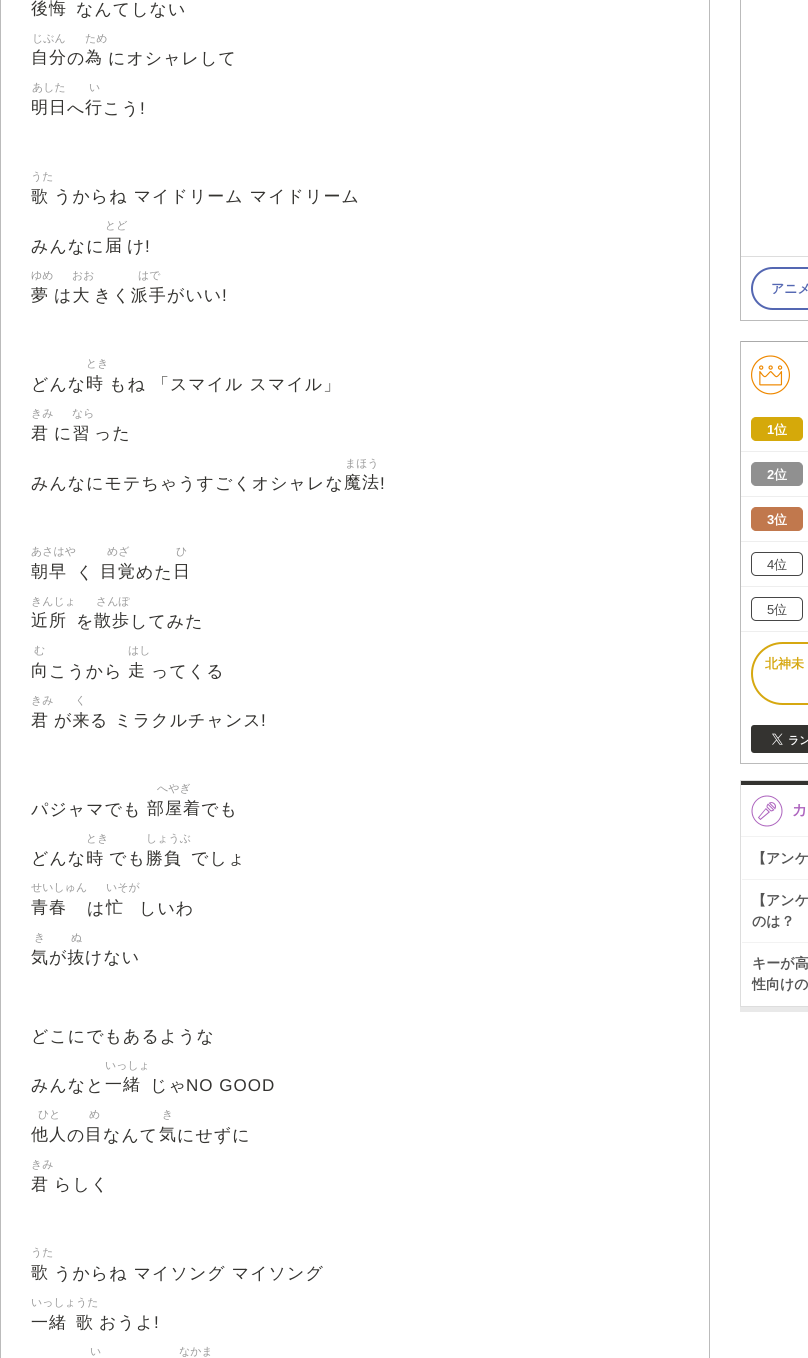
import math
import cairo

surface = cairo.ImageSurface(cairo.FORMAT_RGB24, 808, 1358)
c = cairo.Context(surface)
options = cairo.FontOptions()
options.set_hint_metrics(cairo.HINT_METRICS_OFF)
options.set_hint_style(cairo.HINT_STYLE_NONE)
c.set_font_options(options)
c.set_miter_limit(4)
def C(code):
 c.set_source_rgb(*(v / 255 for v in bytes.fromhex(code[-6:])))
def F(family, size, italic, bold):
 c.select_font_face(family, cairo.FONT_SLANT_ITALIC if italic else cairo.FONT_SLANT_NORMAL, cairo.FONT_WEIGHT_BOLD if bold else cairo.FONT_WEIGHT_NORMAL)
 c.set_font_size(size)
def T(x, y, s):
 c.move_to(x, y)
 c.show_text(s)
def L(x, y, s, letter, word):
 c.move_to(x, y)
 for ch in s:
  c.show_text(ch)
  c.rel_move_to(letter + word * (ch == ' '), 0)
def R(x, y, w, h):
 c.rectangle(x, y, w, h)
 c.fill()
def Q(x, y, w, h, r):
 c.new_sub_path()
 for i, (u, v) in enumerate([(x + w - r, y + h - r), (x + r, y + h - r), (x + r, y + r), (x + w - r, y + r)]):
  c.arc(u, v, r, i * math.pi / 2, (i + 1) * math.pi / 2)
 c.close_path()
def I(path, x, y, w, h):
 c.save()
 c.set_source_surface(cairo.ImageSurface.create_from_png(path), x, y)
 c.rectangle(x, y, w, h)
 c.fill()
 c.restore()
C('ffffff')
c.paint()
C('bbbbbb')
R(709,0,1,1358)
R(0,0,1,1358)
F('WenQuanYi Zen Hei Medium',17,0,0)
C('343330')
L(31,14,'後悔',1,0)
L(76,15,'なんてしない',1,0)
F('WenQuanYi Zen Hei Medium',11,0,0)
C('999999')
T(32,42,'じぶん')
F('WenQuanYi Zen Hei Medium',17,0,0)
C('343330')
L(31,63,'自分',1,0)
L(67,64,'の',1,0)
F('WenQuanYi Zen Hei Medium',11,0,0)
C('999999')
T(85,42,'ため')
F('WenQuanYi Zen Hei Medium',17,0,0)
C('343330')
L(85,63,'為',1,0)
L(108,64,'にオシャレして',1,0)
F('WenQuanYi Zen Hei Medium',11,0,0)
C('999999')
T(32,91,'あした')
F('WenQuanYi Zen Hei Medium',17,0,0)
C('343330')
L(31,113,'明日',1,0)
L(67,114,'へ',1,0)
F('WenQuanYi Zen Hei Medium',11,0,0)
C('999999')
T(89,91,'い')
F('WenQuanYi Zen Hei Medium',17,0,0)
C('343330')
L(85,113,'行',1,0)
L(103,114,'こう',1,0)
F('Liberation Sans',17,0,0)
L(140,114,'!',1,0)
F('WenQuanYi Zen Hei Medium',11,0,0)
C('999999')
T(31,180,'うた')
F('WenQuanYi Zen Hei Medium',17,0,0)
C('343330')
L(31,202,'歌',1,0)
L(54,202,'うからね マイドリーム マイドリーム',1,0)
L(31,252,'みんなに',1,0)
F('WenQuanYi Zen Hei Medium',11,0,0)
C('999999')
T(105,229,'とど')
F('WenQuanYi Zen Hei Medium',17,0,0)
C('343330')
L(105,251,'届',1,0)
L(127,252,'け',1,0)
F('Liberation Sans',17,0,0)
L(145,252,'!',1,0)
F('WenQuanYi Zen Hei Medium',11,0,0)
C('999999')
T(31,279,'ゆめ')
F('WenQuanYi Zen Hei Medium',17,0,0)
C('343330')
L(31,301,'夢',1,0)
F('WenQuanYi Zen Hei Medium',11,0,0)
C('999999')
T(72,279,'おお')
T(138,279,'はで')
F('WenQuanYi Zen Hei Medium',17,0,0)
C('343330')
L(54,301,'は大',1,0)
L(94,301,'きく派手',1,0)
L(167,301,'がいい',1,0)
F('Liberation Sans',17,0,0)
L(222,301,'!',1,0)
F('WenQuanYi Zen Hei Medium',17,0,0)
L(31,390,'どんな',1,0)
F('WenQuanYi Zen Hei Medium',11,0,0)
C('999999')
T(86,367,'とき')
F('WenQuanYi Zen Hei Medium',17,0,0)
C('343330')
L(86,389,'時',1,0)
L(109,390,'もね 「スマイル スマイル」',1,0)
F('WenQuanYi Zen Hei Medium',11,0,0)
C('999999')
T(31,417,'きみ')
F('WenQuanYi Zen Hei Medium',17,0,0)
C('343330')
L(31,439,'君',1,0)
F('WenQuanYi Zen Hei Medium',11,0,0)
C('999999')
T(72,417,'なら')
F('WenQuanYi Zen Hei Medium',17,0,0)
C('343330')
L(54,439,'に習',1,0)
L(94,439,'った',1,0)
L(31,489,'みんなにモテちゃうすごくオシャレな',1,0)
F('WenQuanYi Zen Hei Medium',11,0,0)
C('999999')
T(345,467,'まほう')
F('WenQuanYi Zen Hei Medium',17,0,0)
C('343330')
L(344,488,'魔法',1,0)
F('Liberation Sans',17,0,0)
L(380,489,'!',1,0)
F('WenQuanYi Zen Hei Medium',11,0,0)
C('999999')
T(31,555,'あさはや')
F('WenQuanYi Zen Hei Medium',17,0,0)
C('343330')
L(31,577,'朝早',1,0)
L(76,578,'く',1,0)
F('WenQuanYi Zen Hei Medium',11,0,0)
C('999999')
T(107,555,'めざ')
F('WenQuanYi Zen Hei Medium',17,0,0)
C('343330')
L(100,577,'目覚',1,0)
L(136,578,'めた',1,0)
F('WenQuanYi Zen Hei Medium',11,0,0)
C('999999')
T(176,555,'ひ')
F('WenQuanYi Zen Hei Medium',17,0,0)
C('343330')
L(173,577,'日',1,0)
F('WenQuanYi Zen Hei Medium',11,0,0)
C('999999')
T(31,605,'きんじょ')
F('WenQuanYi Zen Hei Medium',17,0,0)
C('343330')
L(31,626,'近所',1,0)
L(76,627,'を',1,0)
F('WenQuanYi Zen Hei Medium',11,0,0)
C('999999')
T(96,605,'さんぽ')
F('WenQuanYi Zen Hei Medium',17,0,0)
C('343330')
L(94,626,'散歩',1,0)
L(130,627,'してみた',1,0)
F('WenQuanYi Zen Hei Medium',11,0,0)
C('999999')
T(34,654,'む')
F('WenQuanYi Zen Hei Medium',17,0,0)
C('343330')
L(31,676,'向',1,0)
L(49,677,'こうから',1,0)
F('WenQuanYi Zen Hei Medium',11,0,0)
C('999999')
T(128,654,'はし')
F('WenQuanYi Zen Hei Medium',17,0,0)
C('343330')
L(128,676,'走',1,0)
L(151,677,'ってくる',1,0)
F('WenQuanYi Zen Hei Medium',11,0,0)
C('999999')
T(31,704,'きみ')
F('WenQuanYi Zen Hei Medium',17,0,0)
C('343330')
L(31,726,'君',1,0)
F('WenQuanYi Zen Hei Medium',11,0,0)
C('999999')
T(75,704,'く')
F('WenQuanYi Zen Hei Medium',17,0,0)
C('343330')
L(54,726,'が来',1,0)
L(90,726,'る ミラクルチャンス',1,0)
F('Liberation Sans',17,0,0)
L(261,726,'!',1,0)
F('WenQuanYi Zen Hei Medium',17,0,0)
L(31,815,'パジャマでも',1,0)
F('WenQuanYi Zen Hei Medium',11,0,0)
C('999999')
T(157,792,'へやぎ')
F('WenQuanYi Zen Hei Medium',17,0,0)
C('343330')
L(147,814,'部屋着',1,0)
L(201,815,'でも',1,0)
F('WenQuanYi Zen Hei Medium',11,0,0)
C('999999')
T(86,842,'とき')
T(146,842,'しょうぶ')
F('WenQuanYi Zen Hei Medium',17,0,0)
C('343330')
L(31,864,'どんな時',1,0)
L(109,864,'でも勝負',1,0)
L(191,864,'でしょ',1,0)
F('WenQuanYi Zen Hei Medium',11,0,0)
C('999999')
T(31,891,'せいしゅん')
F('WenQuanYi Zen Hei Medium',17,0,0)
C('343330')
L(31,913,'青春',1,0)
L(87,914,'は',1,0)
F('WenQuanYi Zen Hei Medium',11,0,0)
C('999999')
T(106,891,'いそが')
F('WenQuanYi Zen Hei Medium',17,0,0)
C('343330')
L(106,913,'忙',1,0)
L(139,914,'しいわ',1,0)
F('WenQuanYi Zen Hei Medium',11,0,0)
C('999999')
T(34,941,'き')
F('WenQuanYi Zen Hei Medium',17,0,0)
C('343330')
L(31,963,'気',1,0)
F('WenQuanYi Zen Hei Medium',11,0,0)
C('999999')
T(71,941,'ぬ')
F('WenQuanYi Zen Hei Medium',17,0,0)
C('343330')
L(49,963,'が抜',1,0)
L(85,963,'けない',1,0)
L(31,1042,'どこにでもあるような',1,0)
L(31,1091,'みんなと',1,0)
F('WenQuanYi Zen Hei Medium',11,0,0)
C('999999')
T(105,1069,'いっしょ')
F('WenQuanYi Zen Hei Medium',17,0,0)
C('343330')
L(105,1090,'一緒',1,0)
L(150,1091,'じゃ',1,0)
F('Liberation Sans',17,0,0)
L(186,1091,'NO GOOD',1,0)
F('WenQuanYi Zen Hei Medium',11,0,0)
C('999999')
T(38,1118,'ひと')
F('WenQuanYi Zen Hei Medium',17,0,0)
C('343330')
L(31,1140,'他人',1,0)
L(67,1141,'の',1,0)
F('WenQuanYi Zen Hei Medium',11,0,0)
C('999999')
T(89,1118,'め')
F('WenQuanYi Zen Hei Medium',17,0,0)
C('343330')
L(85,1140,'目',1,0)
L(103,1141,'なんて',1,0)
F('WenQuanYi Zen Hei Medium',11,0,0)
C('999999')
T(162,1118,'き')
F('WenQuanYi Zen Hei Medium',17,0,0)
C('343330')
L(159,1140,'気',1,0)
L(177,1141,'にせずに',1,0)
F('WenQuanYi Zen Hei Medium',11,0,0)
C('999999')
T(31,1168,'きみ')
F('WenQuanYi Zen Hei Medium',17,0,0)
C('343330')
L(31,1190,'君',1,0)
L(54,1190,'らしく',1,0)
F('WenQuanYi Zen Hei Medium',11,0,0)
C('999999')
T(31,1256,'うた')
F('WenQuanYi Zen Hei Medium',17,0,0)
C('343330')
L(31,1278,'歌',1,0)
L(54,1279,'うからね マイソング マイソング',1,0)
F('WenQuanYi Zen Hei Medium',11,0,0)
C('999999')
T(31,1306,'いっしょうた')
F('WenQuanYi Zen Hei Medium',17,0,0)
C('343330')
L(31,1328,'一緒',1,0)
L(76,1328,'歌',1,0)
L(99,1328,'おうよ',1,0)
F('Liberation Sans',17,0,0)
L(154,1328,'!',1,0)
F('WenQuanYi Zen Hei Medium',11,0,0)
C('999999')
T(90,1355,'い')
T(179,1355,'なかま')
C('bbbbbb')
R(740,320,68,1)
R(740,0,1,321)
C('dddddd')
R(741,256,67,1)
Q(752,268,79,41,20.5)
C('5467b2')
c.stroke()
F('WenQuanYi Zen Hei',13,0,1)
T(771,293,'アニメ')
C('bbbbbb')
R(740,763,68,1)
R(740,341,1,423)
C('aaaaaa')
R(741,341,67,1)
I('1.png',751,355,39,40)
C('eeeeee')
R(741,451,67,1)
C('d5a90a')
Q(751.5,417.5,51,23,4.5)
c.fill_preserve()
c.set_line_width(1)
c.stroke()
F('Liberation Sans',13,0,1)
C('ffffff')
T(767,434,'1')
F('WenQuanYi Zen Hei',13,0,1)
T(774,434,'位')
C('eeeeee')
R(741,496,67,1)
C('909090')
Q(751.5,462.5,51,23,4.5)
c.fill_preserve()
c.stroke()
F('Liberation Sans',13,0,1)
C('ffffff')
T(767,479,'2')
F('WenQuanYi Zen Hei',13,0,1)
T(774,479,'位')
C('eeeeee')
R(741,541,67,1)
C('c1784d')
Q(751.5,507.5,51,23,4.5)
c.fill_preserve()
c.stroke()
F('Liberation Sans',13,0,1)
C('ffffff')
T(767,524,'3')
F('WenQuanYi Zen Hei',13,0,1)
T(774,524,'位')
C('eeeeee')
R(741,586,67,1)
Q(751.5,552.5,51,23,4.5)
C('464646')
c.stroke()
F('Liberation Sans',13,0,0)
T(767,569,'4')
F('WenQuanYi Zen Hei Medium',13,0,0)
T(774,569,'位')
C('eeeeee')
R(741,631,67,1)
Q(751.5,597.5,51,23,4.5)
C('464646')
c.stroke()
F('Liberation Sans',13,0,0)
T(767,614,'5')
F('WenQuanYi Zen Hei Medium',13,0,0)
T(774,614,'位')
Q(752,643,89,61,30.5)
C('d6a810')
c.set_line_width(2)
c.stroke()
F('WenQuanYi Zen Hei',13,0,1)
T(765,668,'北神未')
C('343330')
Q(751,725,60,28,3)
c.fill()
I('2.png',772,733,11,12)
F('WenQuanYi Zen Hei',11,0,1)
C('ffffff')
T(788,744,'ラン')
C('e9e9e9')
R(740,1007,68,5)
c.rectangle(740.5,780.5,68,226)
C('dddddd')
c.set_line_width(1)
c.stroke()
C('343330')
R(741,781,67,4)
C('f2f2f2')
R(741,836,67,1)
I('3.png',751,795,32,32)
F('WenQuanYi Zen Hei',15,0,1)
C('ad64be')
T(792,815,'カ')
F('WenQuanYi Zen Hei',14,0,1)
C('555555')
T(752,863,'【アンケ')
C('f2f2f2')
R(742,879,66,1)
C('555555')
T(752,905,'【アンケ')
T(752,926,'のは？')
C('f2f2f2')
R(742,942,66,1)
C('555555')
T(752,968,'キーが高')
T(752,989,'性向けの')
surface.write_to_png('o.png')
